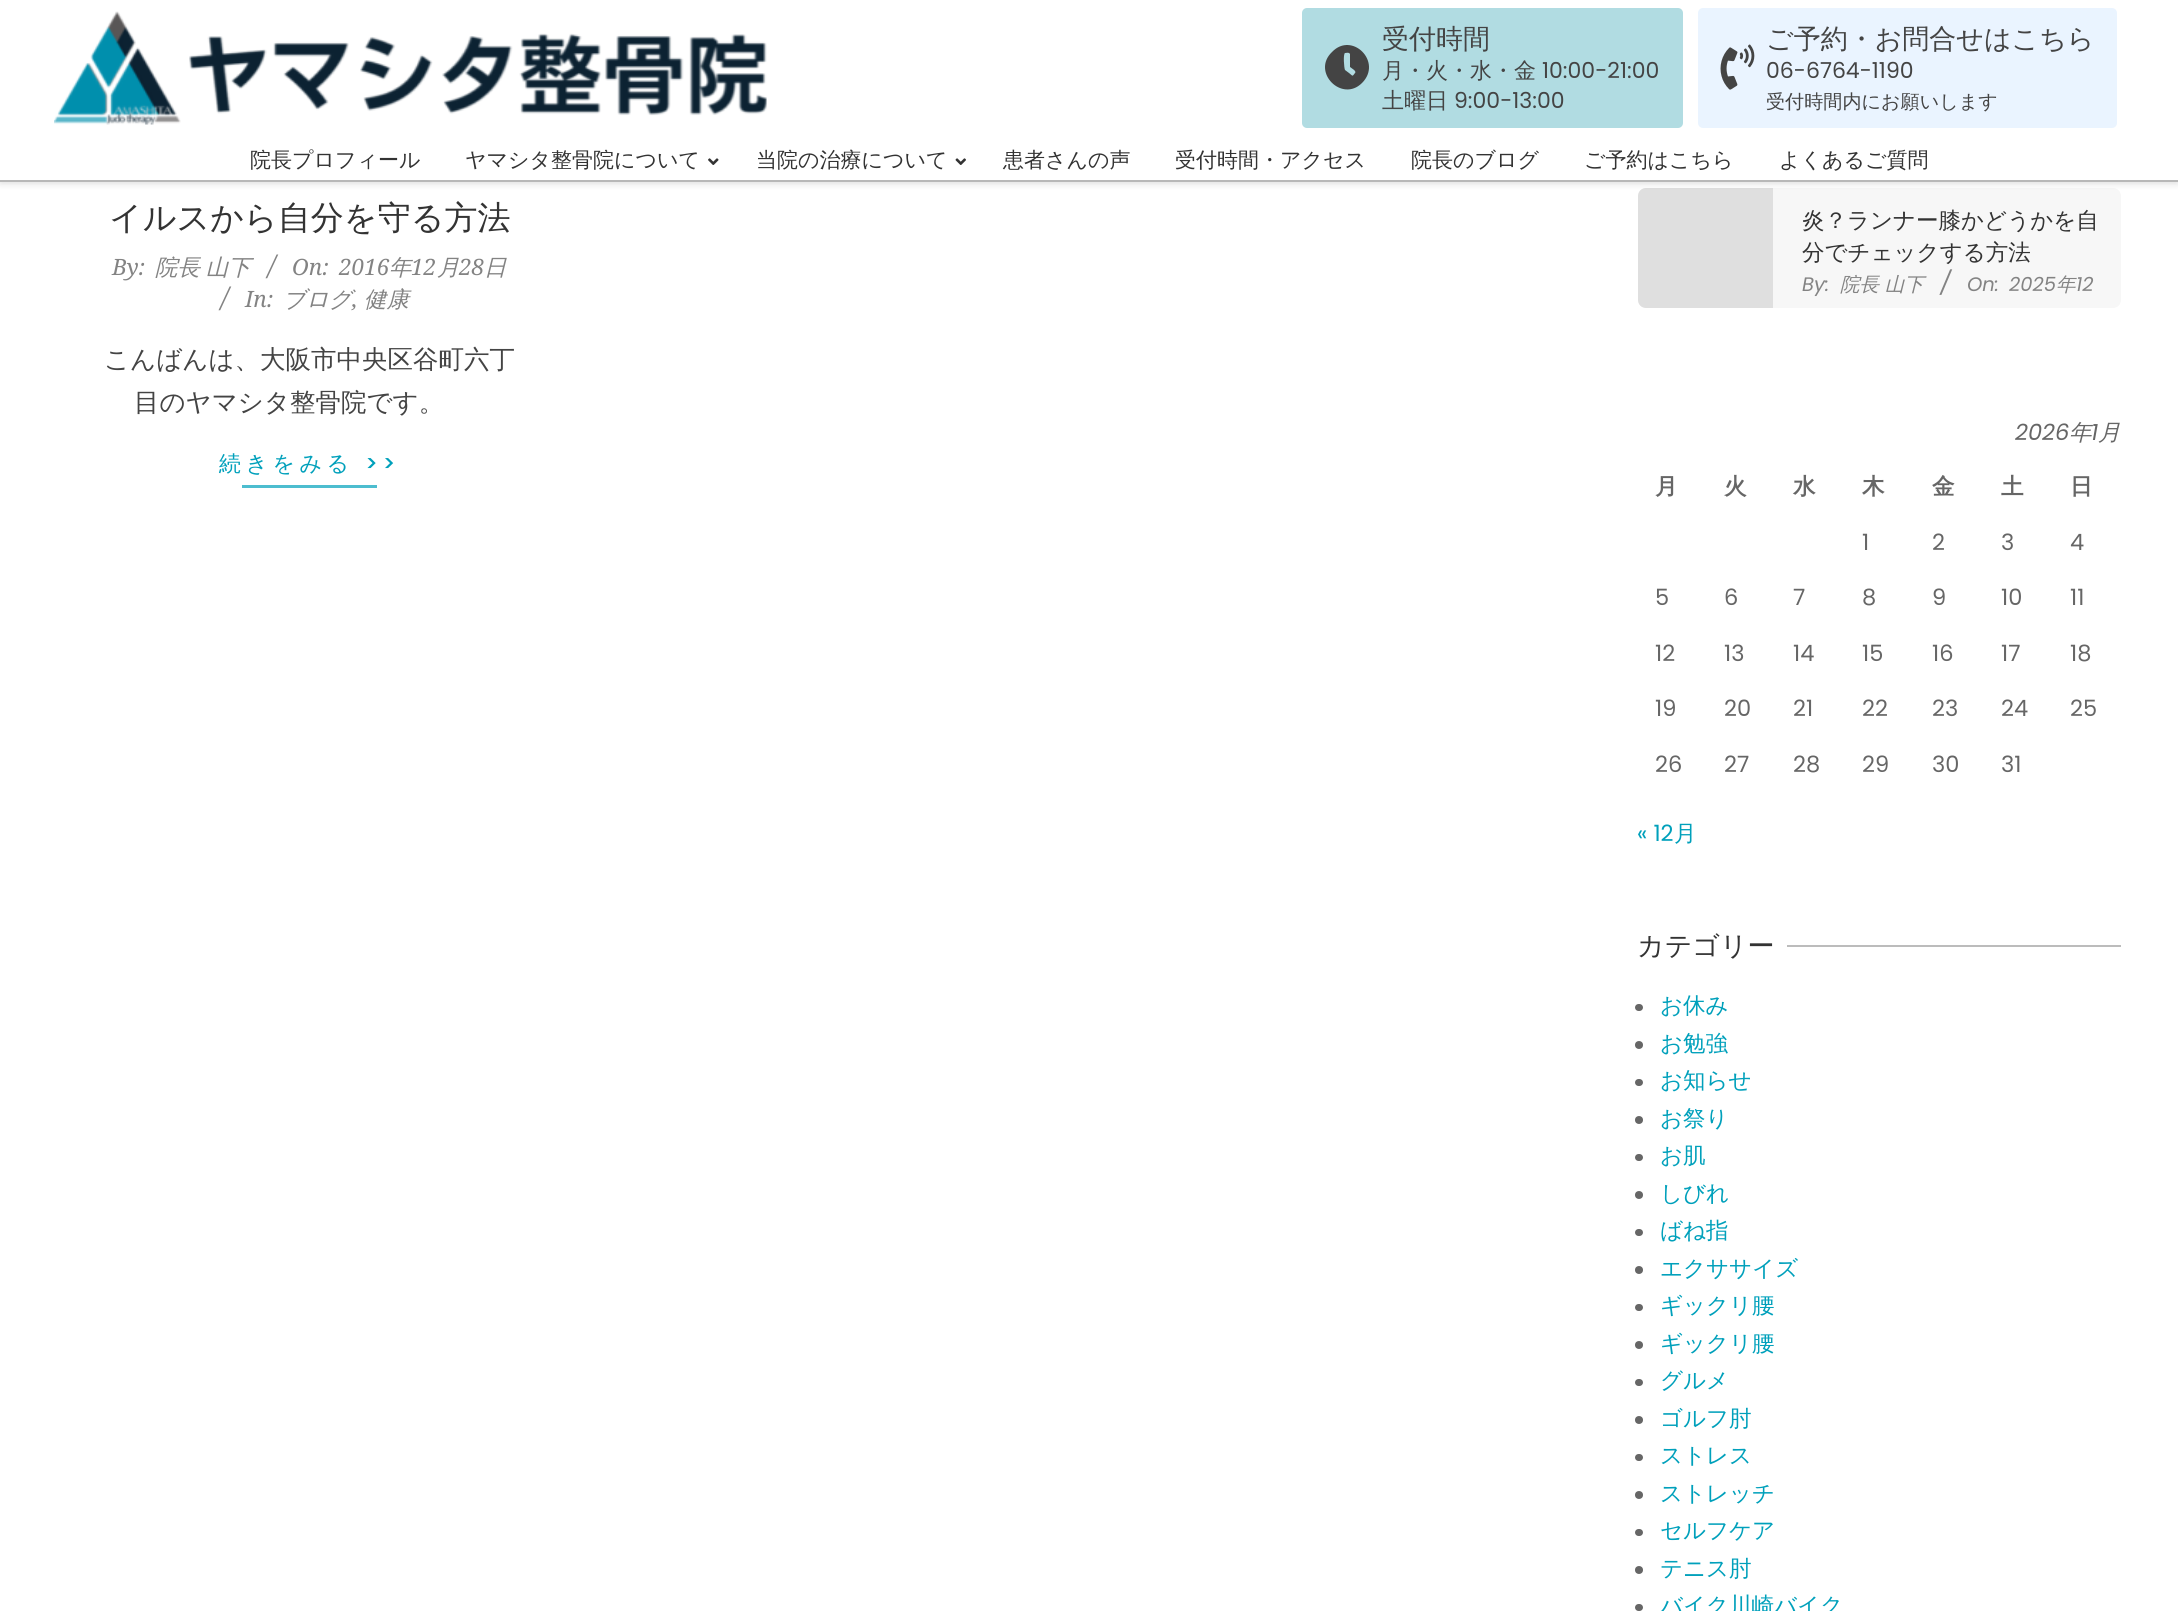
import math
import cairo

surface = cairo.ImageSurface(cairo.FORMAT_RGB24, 2178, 1611)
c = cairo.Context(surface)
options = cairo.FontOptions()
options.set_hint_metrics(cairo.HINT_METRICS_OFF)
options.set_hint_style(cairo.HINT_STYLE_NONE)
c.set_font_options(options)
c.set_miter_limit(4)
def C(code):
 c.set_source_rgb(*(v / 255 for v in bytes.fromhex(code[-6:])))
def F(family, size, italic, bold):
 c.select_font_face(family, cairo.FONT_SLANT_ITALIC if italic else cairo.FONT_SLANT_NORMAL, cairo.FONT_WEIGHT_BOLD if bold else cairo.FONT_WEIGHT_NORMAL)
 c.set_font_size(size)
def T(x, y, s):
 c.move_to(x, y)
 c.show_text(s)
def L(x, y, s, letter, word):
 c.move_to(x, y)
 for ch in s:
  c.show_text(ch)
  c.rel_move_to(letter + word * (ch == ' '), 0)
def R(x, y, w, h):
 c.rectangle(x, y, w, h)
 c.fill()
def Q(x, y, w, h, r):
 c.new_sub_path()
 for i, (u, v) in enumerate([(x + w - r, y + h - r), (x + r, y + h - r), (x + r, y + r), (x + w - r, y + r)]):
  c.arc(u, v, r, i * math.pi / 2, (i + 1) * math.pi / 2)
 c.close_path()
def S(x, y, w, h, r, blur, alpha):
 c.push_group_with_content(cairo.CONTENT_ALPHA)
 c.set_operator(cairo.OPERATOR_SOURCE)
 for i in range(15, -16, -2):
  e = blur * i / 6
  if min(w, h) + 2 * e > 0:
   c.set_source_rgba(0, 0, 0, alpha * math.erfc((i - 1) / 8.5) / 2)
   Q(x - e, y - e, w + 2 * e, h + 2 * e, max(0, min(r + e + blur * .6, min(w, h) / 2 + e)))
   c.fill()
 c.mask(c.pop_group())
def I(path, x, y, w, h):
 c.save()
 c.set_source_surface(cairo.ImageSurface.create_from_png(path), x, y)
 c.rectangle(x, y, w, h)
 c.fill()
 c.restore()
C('ffffff')
c.paint()
C('f7f7f7')
Q(1638,188,483,120,8)
c.fill()
c.set_source_rgba(0,0,0,0.1)
c.new_path()
c.move_to(1646,188)
c.line_to(1773,188)
c.line_to(1773,308)
c.line_to(1646,308)
c.curve_to(1641.5,308,1638,304.5,1638,300)
c.line_to(1638,196)
c.curve_to(1638,191.5,1641.5,188,1646,188)
c.close_path()
c.fill()
C('000000')
S(0,2,2178,181,0,4,.15)
C('ffffff')
R(0,0,2178,180)
C('b8b8b8')
R(0,180,2178,2)
I('1.png',54,11,713,114)
C('b1dce2')
Q(1302,8,381,120,5)
c.fill()
C('444444')
c.new_path()
c.move_to(1332,52)
c.curve_to(1352,31,1383,62,1362,83)
c.curve_to(1342,103,1311,72,1332,52)
c.close_path()
c.move_to(1355,73)
c.curve_to(1357,71,1351,68,1350,67)
c.line_to(1350,54)
c.curve_to(1349,52,1346,53,1345,53)
c.curve_to(1343,54,1344,68,1345,70)
c.line_to(1349,73)
c.curve_to(1353,76,1352,77,1355,73)
c.close_path()
c.fill()
F('WenQuanYi Zen Hei Medium',27,0,0)
T(1382,48,'受付時間')
F('WenQuanYi Zen Hei Medium',22,0,0)
T(1382,78,'月・火・水・金')
F('Poppins',22,0,0)
T(1542,78,'10:00-21:00')
F('WenQuanYi Zen Hei Medium',22,0,0)
T(1382,108,'土曜日')
F('Poppins',22,0,0)
T(1454,108,'9:00-13:00')
C('eaf4ff')
Q(1698,8,419,120,5)
c.fill()
I('2.png',1720,44,35,46)
F('WenQuanYi Zen Hei Medium',27,0,0)
C('444444')
T(1766,48,'ご予約・お問合せはこちら')
F('Poppins',22,0,0)
T(1766,78,'06-6764-1190')
F('WenQuanYi Zen Hei Medium',19.1,0,0)
T(1766,108,'受付時間内にお願いします')
F('WenQuanYi Zen Hei Medium',21,0,0)
C('333333')
T(250,167,'院長プロフィール')
T(465,167,'ヤマシタ整骨院について')
I('3.png',708,158,11,7)
T(756,167,'当院の治療について')
I('4.png',955,158,11,7)
T(1003,167,'患者さんの声')
T(1175,167,'受付時間・アクセス')
T(1411,167,'院長のブログ')
T(1584,167,'ご予約はこちら')
T(1779,167,'よくあるご質問')
F('WenQuanYi Zen Hei Medium',33,0,0)
T(109,229,'イルスから自分を守る方法')
F('Noto Serif',22.5,1,0)
C('838383')
T(112,275,'By:')
F('WenQuanYi Zen Hei Medium',22.5,1,0)
L(155,275,'院長 山下',0,-1)
F('Noto Serif',27,1,0)
T(268,275,'/')
F('Noto Serif',22.5,1,0)
T(292,275,'On:')
T(339,275,'2016')
F('WenQuanYi Zen Hei Medium',22.5,1,0)
T(389,275,'年')
F('Noto Serif',22.5,1,0)
T(411,275,'12')
F('WenQuanYi Zen Hei Medium',22.5,1,0)
T(437,275,'月')
F('Noto Serif',22.5,1,0)
T(459,275,'28')
F('WenQuanYi Zen Hei Medium',22.5,1,0)
T(484,275,'日')
F('Noto Serif',27,1,0)
T(221,307,'/')
F('Noto Serif',22.5,1,0)
T(245,307,'In:')
F('WenQuanYi Zen Hei Medium',22.5,1,0)
T(283,307,'ブログ')
T(364,307,'健康')
F('Noto Serif',22.5,1,0)
T(352,307,',')
F('WenQuanYi Zen Hei Medium',25.5,0,0)
C('444444')
T(104,368,'こんばんは、大阪市中央区谷町六丁')
T(134,411,'目のヤマシタ整骨院です。')
F('WenQuanYi Zen Hei Medium',22,0,0)
C('00a0bb')
L(219,471,'続きをみる',4.5,0)
F('Poppins Medium',22,0,0)
L(365,471,'>>',4.5,0)
C('4dbdcf')
R(242,485,135,3)
F('WenQuanYi Zen Hei Medium',22.5,0,0)
C('333333')
T(1802,228,'炎？ランナー膝かどうかを自')
T(1802,260,'分でチェックする方法')
F('Poppins',19.5,1,0)
C('838383')
T(1802,291,'By:')
F('WenQuanYi Zen Hei Medium',19.5,1,0)
T(1840,291,'院長 山下')
F('Poppins',23,1,0)
T(1940,291,'/')
F('Poppins',19.5,1,0)
T(1967,291,'On:')
T(2009,291,'2025')
F('WenQuanYi Zen Hei Medium',19.5,1,0)
T(2056,291,'年')
F('Poppins',19.5,1,0)
T(2076,291,'12')
F('Poppins',22.5,1,0)
C('666666')
T(2015,440,'2026')
F('WenQuanYi Zen Hei Medium',22.5,1,0)
T(2069,440,'年')
F('Poppins',22.5,1,0)
T(2091,440,'1')
F('WenQuanYi Zen Hei Medium',22.5,1,0)
T(2098,440,'月')
F('WenQuanYi Zen Hei',22.5,0,1)
L(1655,494,'月',2,0)
L(1724,494,'火',2,0)
L(1793,494,'水',2,0)
L(1862,494,'木',2,0)
L(1932,494,'金',2,0)
L(2001,494,'土',2,0)
L(2070,494,'日',2,0)
F('Poppins',22.5,0,0)
T(1862,550,'1')
T(1932,550,'2')
T(2001,550,'3')
T(2070,550,'4')
T(1655,605,'5')
T(1724,605,'6')
T(1793,605,'7')
T(1862,605,'8')
T(1932,605,'9')
T(2001,605,'10')
T(2070,605,'11')
T(1655,661,'12')
T(1724,661,'13')
T(1793,661,'14')
T(1862,661,'15')
T(1932,661,'16')
T(2001,661,'17')
T(2070,661,'18')
T(1655,716,'19')
T(1724,716,'20')
T(1793,716,'21')
T(1862,716,'22')
T(1932,716,'23')
T(2001,716,'24')
T(2070,716,'25')
T(1655,772,'26')
T(1724,772,'27')
T(1793,772,'28')
T(1862,772,'29')
T(1932,772,'30')
T(2001,772,'31')
C('00a0bb')
T(1637,841,'« 12')
F('WenQuanYi Zen Hei Medium',22.5,0,0)
T(1674,841,'月')
F('WenQuanYi Zen Hei Medium',27,0,0)
C('333333')
T(1637,955,'カテゴリー')
C('bcbcbc')
R(1787,945,334,2)
C('666666')
Q(1635,1004,8,7,3.5)
c.fill()
F('WenQuanYi Zen Hei Medium',22.5,0,0)
C('00a0bb')
T(1660,1013,'お休み')
C('666666')
c.new_path()
c.arc(1639,1045,4,0,2 * math.pi)
c.fill()
C('00a0bb')
T(1660,1051,'お勉強')
C('666666')
Q(1635,1079,8,7,3.5)
c.fill()
C('00a0bb')
T(1660,1088,'お知らせ')
C('666666')
c.new_path()
c.arc(1639,1120,4,0,2 * math.pi)
c.fill()
C('00a0bb')
T(1660,1126,'お祭り')
C('666666')
Q(1635,1154,8,7,3.5)
c.fill()
C('00a0bb')
T(1660,1163,'お肌')
C('666666')
c.new_path()
c.arc(1639,1195,4,0,2 * math.pi)
c.fill()
C('00a0bb')
T(1660,1201,'しびれ')
C('666666')
Q(1635,1229,8,7,3.5)
c.fill()
C('00a0bb')
T(1660,1238,'ばね指')
C('666666')
c.new_path()
c.arc(1639,1270,4,0,2 * math.pi)
c.fill()
C('00a0bb')
T(1660,1276,'エクササイズ')
C('666666')
Q(1635,1304,8,7,3.5)
c.fill()
C('00a0bb')
T(1660,1313,'ギックリ腰')
C('666666')
c.new_path()
c.arc(1639,1345,4,0,2 * math.pi)
c.fill()
C('00a0bb')
T(1660,1351,'ギックリ腰')
C('666666')
Q(1635,1379,8,7,3.5)
c.fill()
C('00a0bb')
T(1660,1388,'グルメ')
C('666666')
c.new_path()
c.arc(1639,1420,4,0,2 * math.pi)
c.fill()
C('00a0bb')
T(1660,1426,'ゴルフ肘')
C('666666')
Q(1635,1454,8,7,3.5)
c.fill()
C('00a0bb')
T(1660,1463,'ストレス')
C('666666')
c.new_path()
c.arc(1639,1495,4,0,2 * math.pi)
c.fill()
C('00a0bb')
T(1660,1501,'ストレッチ')
C('666666')
Q(1635,1529,8,7,3.5)
c.fill()
C('00a0bb')
T(1660,1538,'セルフケア')
C('666666')
c.new_path()
c.arc(1639,1570,4,0,2 * math.pi)
c.fill()
C('00a0bb')
T(1660,1576,'テニス肘')
C('666666')
Q(1635,1604,8,7,3.5)
c.fill()
C('00a0bb')
T(1660,1613,'バイク川崎バイク')
surface.write_to_png('o.png')
